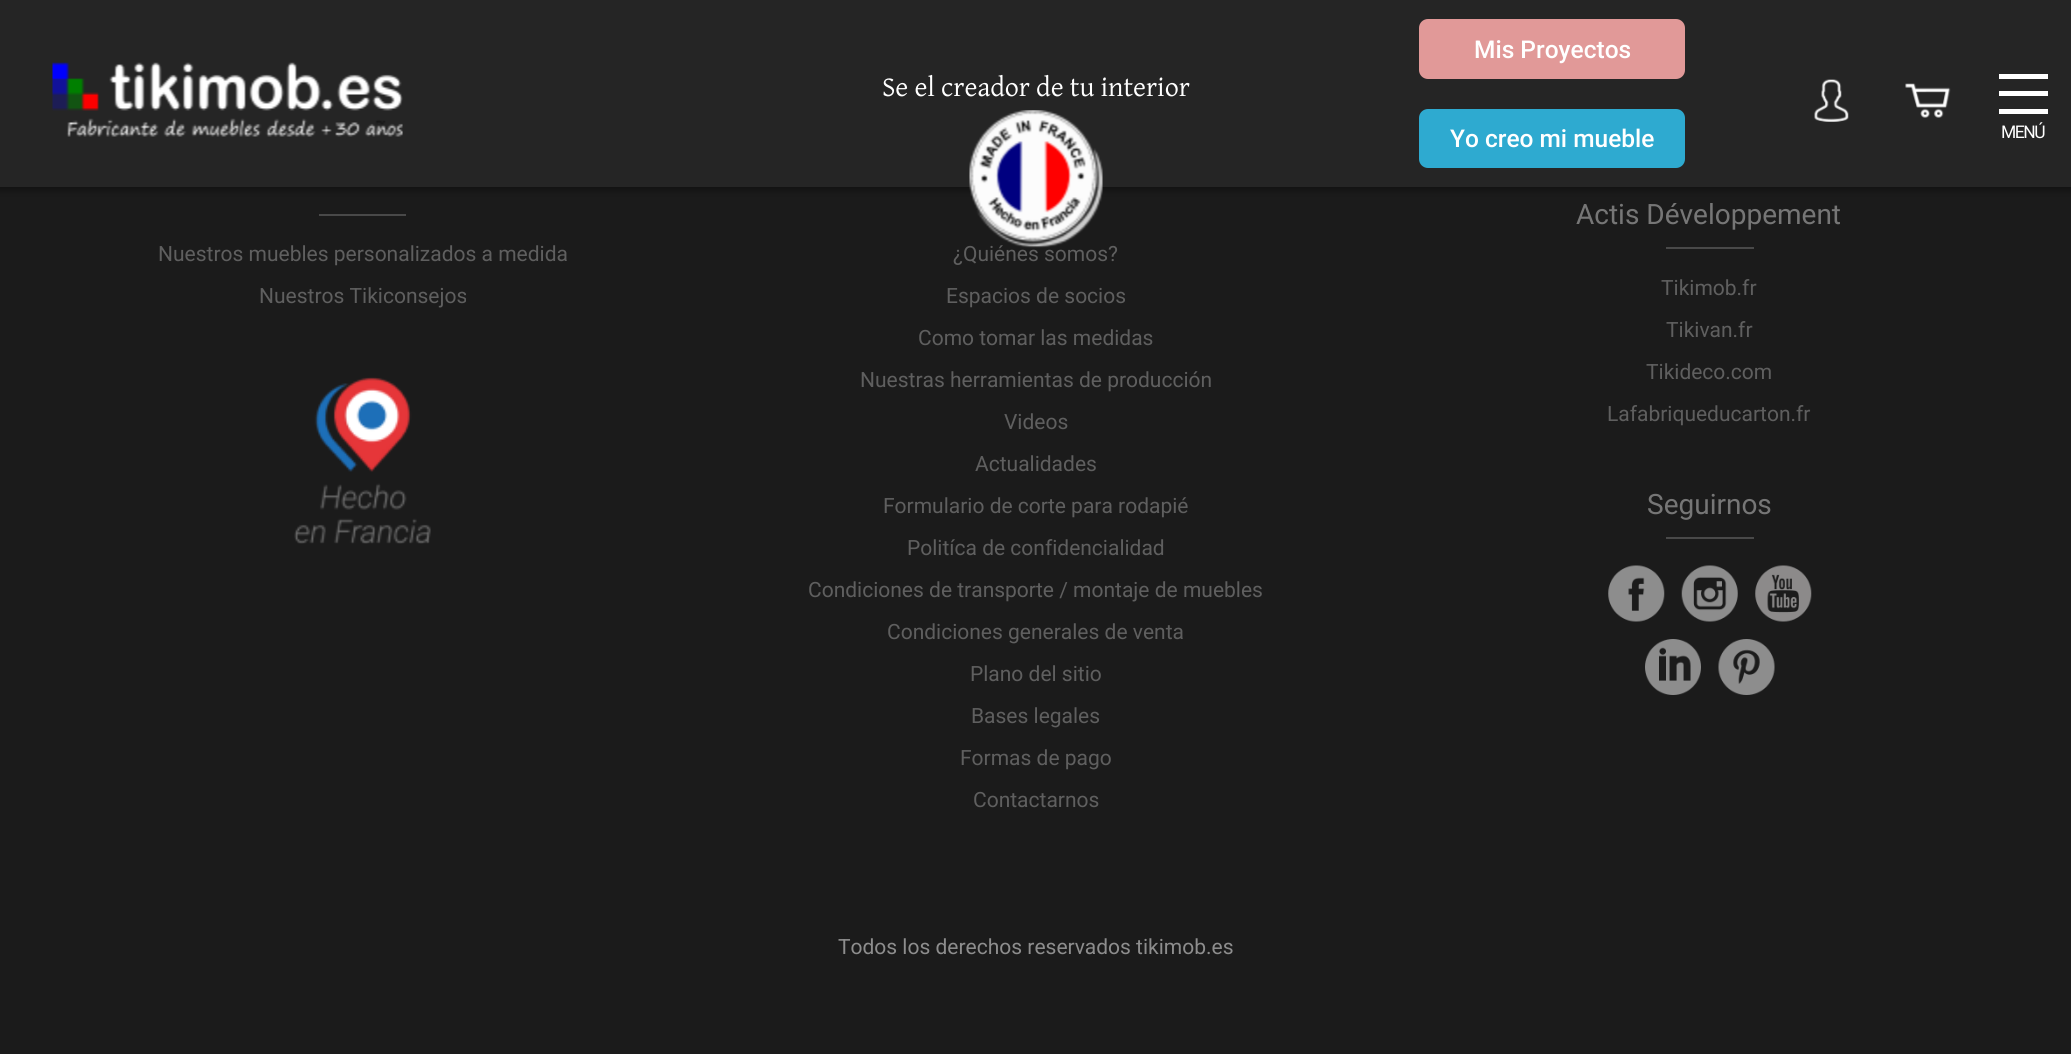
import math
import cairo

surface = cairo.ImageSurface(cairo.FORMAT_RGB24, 2071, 1054)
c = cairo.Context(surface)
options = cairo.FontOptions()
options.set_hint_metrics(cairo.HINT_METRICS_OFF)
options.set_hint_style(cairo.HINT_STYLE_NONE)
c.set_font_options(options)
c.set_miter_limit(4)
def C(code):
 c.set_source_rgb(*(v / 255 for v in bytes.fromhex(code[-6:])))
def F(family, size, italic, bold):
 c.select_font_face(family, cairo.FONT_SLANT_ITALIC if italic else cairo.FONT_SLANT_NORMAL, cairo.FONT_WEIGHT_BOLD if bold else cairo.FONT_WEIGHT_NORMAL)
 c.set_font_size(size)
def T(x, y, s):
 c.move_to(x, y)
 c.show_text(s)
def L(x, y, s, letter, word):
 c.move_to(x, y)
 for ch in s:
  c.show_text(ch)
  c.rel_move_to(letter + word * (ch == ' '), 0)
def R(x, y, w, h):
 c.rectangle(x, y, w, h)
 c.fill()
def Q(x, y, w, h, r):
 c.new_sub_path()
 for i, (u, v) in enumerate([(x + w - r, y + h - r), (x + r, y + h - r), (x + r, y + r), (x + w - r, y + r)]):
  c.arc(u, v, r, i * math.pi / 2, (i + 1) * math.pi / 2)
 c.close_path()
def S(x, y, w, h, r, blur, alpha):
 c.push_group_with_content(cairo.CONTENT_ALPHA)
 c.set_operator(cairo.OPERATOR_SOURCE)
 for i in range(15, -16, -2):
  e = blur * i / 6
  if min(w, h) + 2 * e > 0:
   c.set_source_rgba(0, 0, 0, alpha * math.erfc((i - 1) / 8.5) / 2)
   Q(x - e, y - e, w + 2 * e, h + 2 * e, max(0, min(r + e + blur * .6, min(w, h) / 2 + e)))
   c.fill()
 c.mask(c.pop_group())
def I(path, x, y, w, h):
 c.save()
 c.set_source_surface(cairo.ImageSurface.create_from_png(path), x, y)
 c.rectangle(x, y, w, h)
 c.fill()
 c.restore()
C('1b1b1b')
c.paint()
C('000000')
S(-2,-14,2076,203,0,4.5,.5)
C('252525')
R(0,0,2071,187)
I('1.png',52,62,351,75)
F('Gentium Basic',28,0,0)
C('ffffff')
T(882,96,'Se el creador de tu interior')
F('Roboto',21,0,0)
C('5f5f5f')
T(953,261,'¿Quiénes somos?')
I('2.png',969,110,134,138)
C('e19998')
Q(1420,20,264,58,8)
c.fill_preserve()
c.stroke()
F('Roboto Medium',24.5,0,0)
C('ffffff')
T(1474,58,'Mis Proyectos')
I('3.png',1814,79,35,43)
I('4.png',1905,83,46,35)
C('2eaad0')
Q(1420,110,264,57,8)
c.fill_preserve()
c.stroke()
C('ffffff')
T(1450,147,'Yo creo mi mueble')
R(1999,74,49,5)
R(1999,91,49,5)
R(1999,109,49,5)
F('Roboto',17.5,0,0)
L(2001,138,'MENÚ',-1.5,0)
C('494949')
R(319,214,87,2)
F('Roboto',21,0,0)
C('5f5f5f')
T(158,261,'Nuestros muebles personalizados a medida')
T(259,303,'Nuestros Tikiconsejos')
I('5.png',294,377,137,167)
T(946,303,'Espacios de socios')
T(918,345,'Como tomar las medidas')
T(860,387,'Nuestras herramientas de producción')
T(1004,429,'Videos')
T(975,471,'Actualidades')
T(883,513,'Formulario de corte para rodapié')
T(907,555,'Politíca de confidencialidad')
T(808,597,'Condiciones de transporte / montaje de muebles')
T(887,639,'Condiciones generales de venta')
T(970,681,'Plano del sitio')
T(971,723,'Bases legales')
T(960,765,'Formas de pago')
T(973,807,'Contactarnos')
F('Roboto',28,0,0)
C('767676')
T(1576,224,'Actis Développement')
C('494949')
R(1666,247,88,2)
F('Roboto',21,0,0)
C('5f5f5f')
T(1661,295,'Tikimob.fr')
T(1666,337,'Tikivan.fr')
T(1646,379,'Tikideco.com')
T(1607,421,'Lafabriqueducarton.fr')
F('Roboto',28,0,0)
C('767676')
T(1647,514,'Seguirnos')
C('494949')
R(1666,537,88,2)
I('6.png',1608,565,57,57)
I('7.png',1681,565,57,57)
I('8.png',1755,565,57,57)
I('9.png',1645,639,56,56)
I('10.png',1718,639,57,56)
F('Roboto',21,0,0)
C('8d8d8d')
T(838,954,'Todos los derechos reservados tikimob.es')
surface.write_to_png('o.png')
